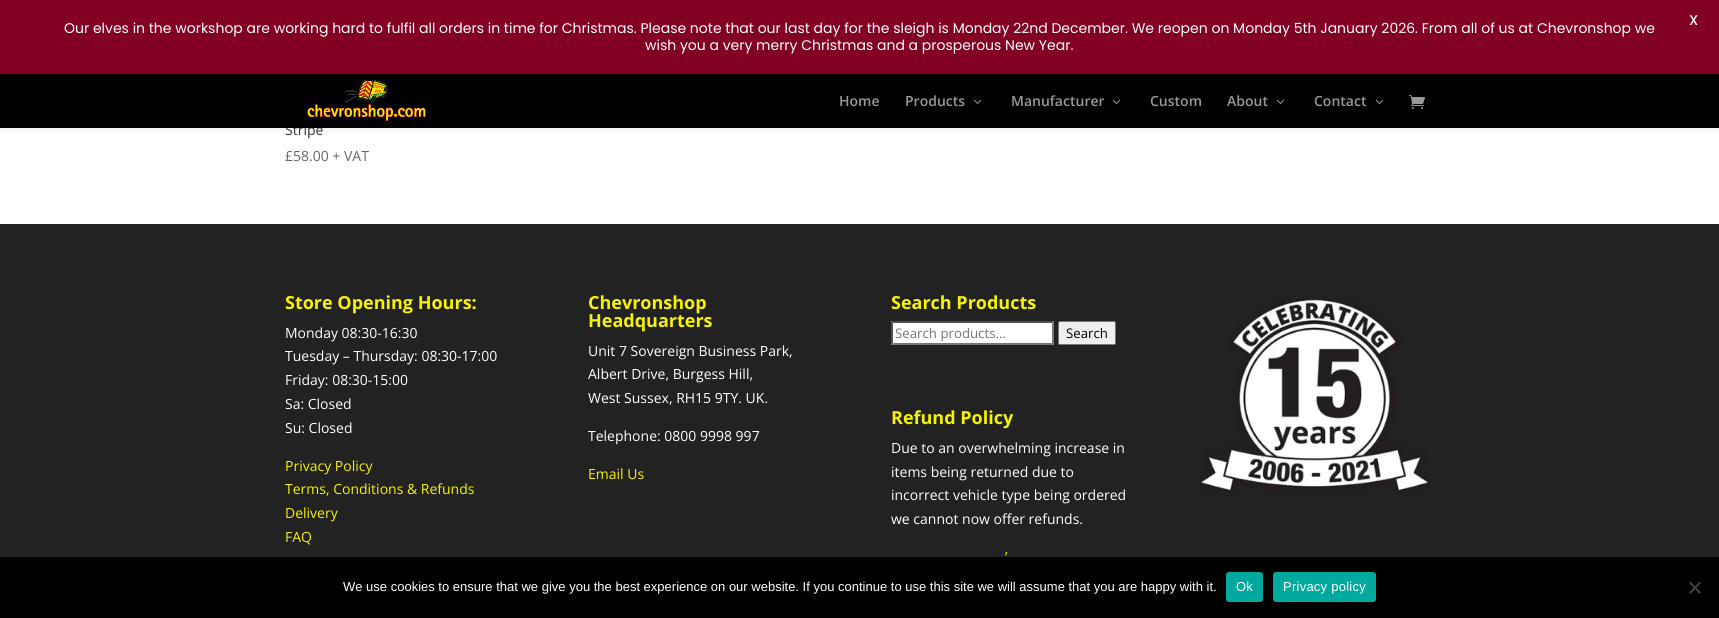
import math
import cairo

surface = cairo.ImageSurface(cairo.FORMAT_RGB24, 1719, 618)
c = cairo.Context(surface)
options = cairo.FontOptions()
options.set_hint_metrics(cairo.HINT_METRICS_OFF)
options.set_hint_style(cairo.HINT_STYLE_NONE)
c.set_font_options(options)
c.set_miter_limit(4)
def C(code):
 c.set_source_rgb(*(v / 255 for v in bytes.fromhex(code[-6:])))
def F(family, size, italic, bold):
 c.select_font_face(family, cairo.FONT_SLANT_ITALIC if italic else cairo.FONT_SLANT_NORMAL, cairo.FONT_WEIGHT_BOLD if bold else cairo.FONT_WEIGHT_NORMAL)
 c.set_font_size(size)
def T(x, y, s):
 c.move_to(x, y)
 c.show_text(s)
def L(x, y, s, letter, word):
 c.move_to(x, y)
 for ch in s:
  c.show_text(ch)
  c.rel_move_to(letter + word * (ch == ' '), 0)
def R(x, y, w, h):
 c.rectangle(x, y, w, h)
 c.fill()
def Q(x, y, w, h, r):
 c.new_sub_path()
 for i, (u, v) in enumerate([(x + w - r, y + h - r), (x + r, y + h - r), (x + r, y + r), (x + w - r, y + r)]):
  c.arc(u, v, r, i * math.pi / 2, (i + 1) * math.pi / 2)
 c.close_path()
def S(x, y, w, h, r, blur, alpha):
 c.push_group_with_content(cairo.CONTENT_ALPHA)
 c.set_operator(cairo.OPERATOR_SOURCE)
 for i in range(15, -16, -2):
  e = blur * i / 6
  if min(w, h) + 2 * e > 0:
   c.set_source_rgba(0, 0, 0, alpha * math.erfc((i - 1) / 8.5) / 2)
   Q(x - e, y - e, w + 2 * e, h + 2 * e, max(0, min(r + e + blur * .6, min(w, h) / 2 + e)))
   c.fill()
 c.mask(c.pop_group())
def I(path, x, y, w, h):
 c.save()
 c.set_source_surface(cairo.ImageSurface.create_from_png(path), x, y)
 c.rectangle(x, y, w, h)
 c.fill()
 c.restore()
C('ffffff')
c.paint()
C('000000')
S(0,74,1719,54,0,3.5,.1)
C('820022')
R(0,0,1719,74)
F('Poppins Medium',14,0,0)
C('ffffff')
T(1689,25,'X')
F('Poppins',14,0,0)
T(64,33,'Our elves in the workshop are working hard to fulfil all orders in time for Christmas. Please note that our last day for the sleigh is Monday 22nd December. We reopen on Monday 5th January 2026. From all of us at Chevronshop we')
T(645,50,'wish you a very merry Christmas and a prosperous New Year.')
F('Open Sans',14,0,0)
C('333333')
T(285,135,'Stripe')
C('000000')
R(0,74,1719,54)
I('1.png',307,79,119,42)
F('Open Sans SemiBold',14,0,0)
C('999999')
T(839,106,'Home')
T(905,106,'Products')
I('2.png',973,99,9,5)
T(1011,106,'Manufacturer')
I('2.png',1112,99,9,5)
T(1150,106,'Custom')
T(1227,106,'About')
I('2.png',1276,99,9,5)
T(1314,106,'Contact')
I('2.png',1375,99,9,5)
I('3.png',1409,95,16,14)
F('Open Sans',14,0,0)
C('666666')
T(285,161,'£58.00 + VAT')
C('222222')
R(0,224,1719,333)
F('Open Sans',18,0,1)
C('f7f300')
T(285,309,'Store Opening Hours:')
F('Open Sans',14,0,0)
C('ffffff')
T(285,338,'Monday 08:30-16:30')
T(285,361,'Tuesday – Thursday: 08:30-17:00')
T(285,385,'Friday: 08:30-15:00')
T(285,409,'Sa: Closed')
T(285,433,'Su: Closed')
C('f7f300')
T(285,471,'Privacy Policy')
T(285,494,'Terms, Conditions & Refunds')
T(285,518,'Delivery')
T(285,542,'FAQ')
F('Open Sans',18,0,1)
T(588,309,'Chevronshop')
T(588,327,'Headquarters')
F('Open Sans',14,0,0)
C('ffffff')
T(588,356,'Unit 7 Sovereign Business Park,')
T(588,379,'Albert Drive, Burgess Hill,')
T(588,403,'West Sussex, RH15 9TY. UK.')
T(588,441,'Telephone: 0800 9998 997')
C('f7f300')
T(588,479,'Email Us')
F('Open Sans',18,0,1)
T(891,309,'Search Products')
C('ffffff')
R(891,321,163,24)
C('4f4f4f')
c.new_path()
c.move_to(891,321)
c.line_to(1054,321)
c.line_to(1052,323)
c.line_to(893,323)
c.close_path()
c.fill()
C('767676')
c.new_path()
c.move_to(1054,321)
c.line_to(1054,345)
c.line_to(1052,343)
c.line_to(1052,323)
c.close_path()
c.fill()
c.new_path()
c.move_to(1054,345)
c.line_to(891,345)
c.line_to(893,343)
c.line_to(1052,343)
c.close_path()
c.fill()
C('4f4f4f')
c.new_path()
c.move_to(891,345)
c.line_to(891,321)
c.line_to(893,323)
c.line_to(893,343)
c.close_path()
c.fill()
F('Open Sans',13.25,0,0)
C('757575')
T(895,338,'Search products…')
C('efefef')
Q(1058.5,321.5,57,23,1.5)
c.fill_preserve()
C('767676')
c.set_line_width(1)
c.stroke()
C('000000')
T(1066,338,'Search')
F('Open Sans',18,0,1)
C('f7f300')
T(891,424,'Refund Policy')
F('Open Sans',14,0,0)
C('ffffff')
T(891,453,'Due to an overwhelming increase in')
T(891,477,'items being returned due to')
T(891,500,'incorrect vehicle type being ordered')
T(891,524,'we cannot now offer refunds.')
C('f7f300')
T(1005,562,'’')
I('4.png',1200,299,229,192)
C('000000')
R(0,557,1719,61)
F('Liberation Sans',13,0,0)
C('ffffff')
T(343,591,'We use cookies to ensure that we give you the best experience on our website. If you continue to use this site we will assume that you are happy with it.')
C('00a99d')
Q(1226,572,37,30,3)
c.fill()
C('ffffff')
L(1236,591,'Ok',.25,0)
C('00a99d')
Q(1273,572,103,30,3)
c.fill()
C('ffffff')
L(1283,591,'Privacy policy',.25,0)
C('404040')
c.new_path()
c.move_to(1699.5,581.5)
c.line_to(1701,583)
c.line_to(1690.5,594)
c.line_to(1689,592.5)
c.close_path()
c.fill()
c.new_path()
c.move_to(1689,583)
c.line_to(1690.5,581.5)
c.line_to(1701,592.5)
c.line_to(1699.5,594)
c.close_path()
c.fill()
surface.write_to_png('o.png')
